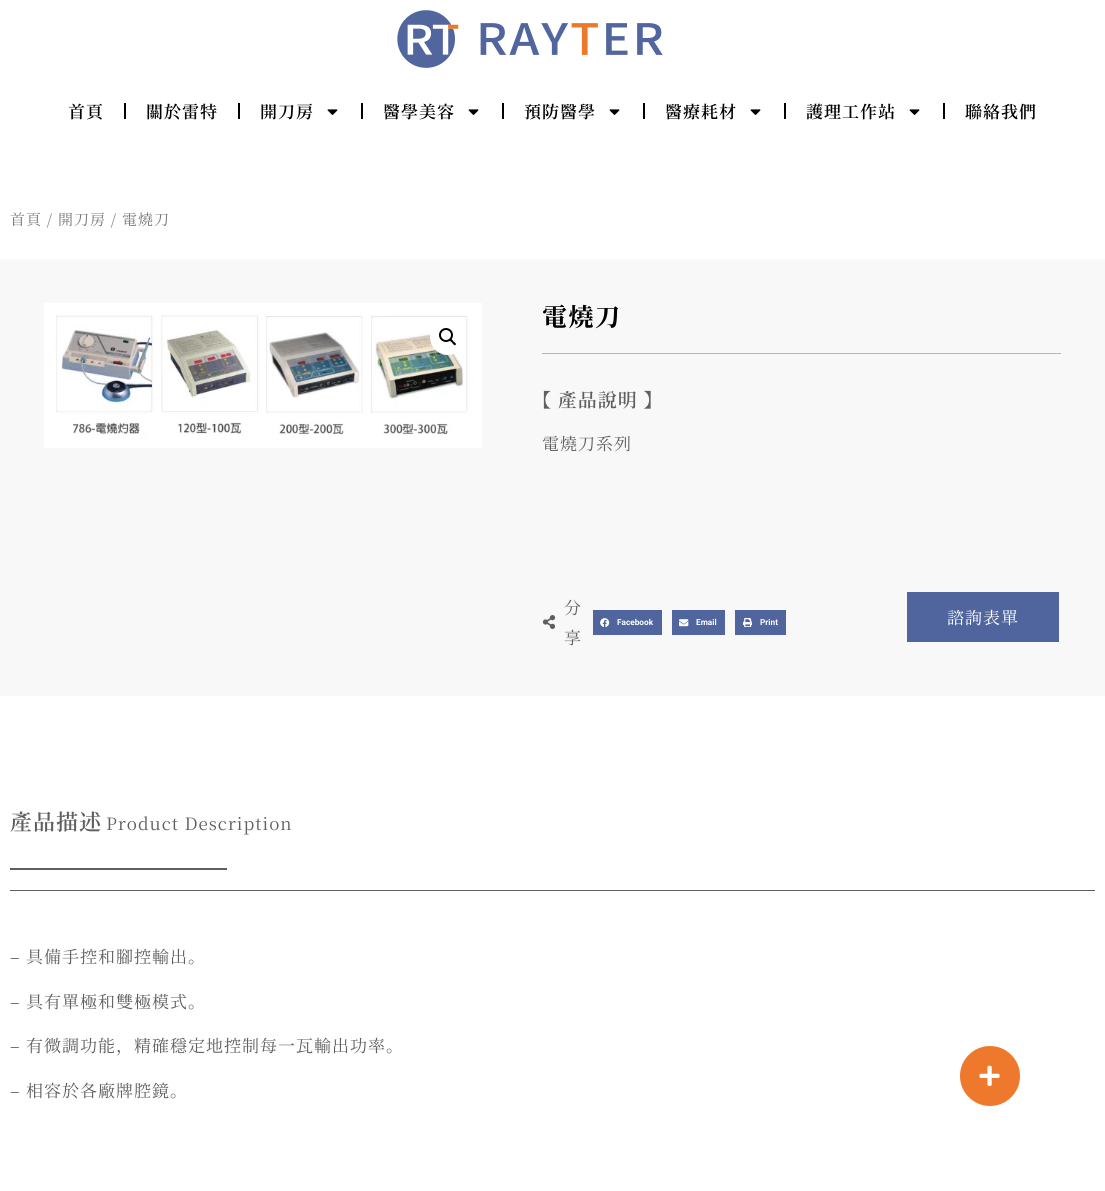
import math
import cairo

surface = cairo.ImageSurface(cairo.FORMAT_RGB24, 1105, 1191)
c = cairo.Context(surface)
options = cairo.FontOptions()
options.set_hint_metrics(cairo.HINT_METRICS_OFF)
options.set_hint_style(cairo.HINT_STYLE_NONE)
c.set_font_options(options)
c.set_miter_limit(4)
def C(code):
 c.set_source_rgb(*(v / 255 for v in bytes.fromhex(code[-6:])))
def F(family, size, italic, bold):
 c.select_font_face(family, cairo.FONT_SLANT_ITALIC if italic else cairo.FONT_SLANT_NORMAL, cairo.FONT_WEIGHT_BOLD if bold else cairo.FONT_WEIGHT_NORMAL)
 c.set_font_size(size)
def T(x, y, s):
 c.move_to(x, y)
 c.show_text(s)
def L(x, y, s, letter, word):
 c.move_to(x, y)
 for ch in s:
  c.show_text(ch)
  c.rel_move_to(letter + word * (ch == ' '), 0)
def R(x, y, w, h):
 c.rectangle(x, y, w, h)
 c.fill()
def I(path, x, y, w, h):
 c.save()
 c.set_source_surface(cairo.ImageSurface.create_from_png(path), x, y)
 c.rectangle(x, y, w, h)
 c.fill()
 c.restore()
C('ffffff')
c.paint()
I('1.png',397,10,266,58)
F('Noto Serif JP SemiBold',17,0,0)
C('000000')
L(68,118,'首頁',1,0)
R(124,103,2,16)
L(146,118,'關於雷特',1,0)
R(238,103,2,16)
L(260,118,'開刀房',1,0)
I('2.png',327,109,11,6)
R(361,103,2,16)
L(383,118,'醫學美容',1,0)
I('2.png',468,109,11,6)
R(502,103,2,16)
L(524,118,'預防醫學',1,0)
I('2.png',609,109,11,6)
R(643,103,2,16)
L(665,118,'醫療耗材',1,0)
I('2.png',750,109,11,6)
R(784,103,2,16)
L(806,118,'護理工作站',1,0)
I('2.png',909,109,11,6)
R(943,103,2,16)
L(965,118,'聯絡我們',1,0)
F('Noto Serif JP',15,0,0)
C('767676')
L(10,225,'首頁 / 開刀房 / 電燒刀',1,0)
C('f8f8f8')
R(0,259,1105,437)
I('3.png',44,303,438,145)
C('ffffff')
c.arc(448,337,18,0,2 * math.pi)
c.fill()
c.arc(446,335,6,0,2 * math.pi)
C('000000')
c.stroke()
c.new_path()
c.move_to(450,339)
c.curve_to(451,338,453,340.5,453.5,341.5)
c.curve_to(454,342,457,343.5,455.5,345)
c.curve_to(454.5,346,452.5,343.5,452,342.5)
c.curve_to(451.5,342,448.5,340.5,450,339)
c.close_path()
c.fill()
F('Noto Serif JP',25,0,1)
L(542,326,'電燒刀',1.5,0)
C('b7b7b7')
R(542,353,519,1)
F('Noto Serif JP SemiBold',19,0,0)
C('5f5f5f')
L(532,407,'【 產品說明 】',1,0)
F('Noto Serif JP',17,0,0)
L(542,450,'電燒刀系列',1,0)
I('4.png',542,615,14,14)
L(564,614,'分',1,0)
L(564,644,'享',1,0)
C('50659e')
R(593,610,69,25)
I('5.png',600,618,10,9)
F('Roboto',8.25,0,1)
C('ffffff')
T(617,625,'Facebook')
C('50659e')
R(672,610,53,25)
I('6.png',679,619,10,8)
C('ffffff')
T(696,625,'Email')
C('50659e')
R(735,610,51,25)
I('7.png',743,618,9,9)
C('ffffff')
T(760,625,'Print')
C('50659e')
R(907,592,152,50)
F('Noto Serif JP',17,0,0)
C('ffffff')
L(947,624,'諮詢表單',1,0)
F('Noto Serif JP SemiBold',22,0,0)
C('5f5f5f')
L(10,830,'產品描述',1,0)
F('Noto Serif JP',17,0,0)
L(106,830,'Product Description',1,0)
R(10,868,217,2)
R(10,890,1085,1)
L(10,963,'– 具備手控和腳控輸出。',1,0)
L(10,1008,'– 具有單極和雙極模式。',1,0)
L(10,1052,'– 有微調功能，精確穩定地控制每一瓦輸出功率。',1,0)
L(10,1097,'– 相容於各廠牌腔鏡。',1,0)
C('ee782b')
c.new_path()
c.arc(990,1076,30,0,2 * math.pi)
c.fill()
I('8.png',979,1065,21,21)
surface.write_to_png('o.png')
